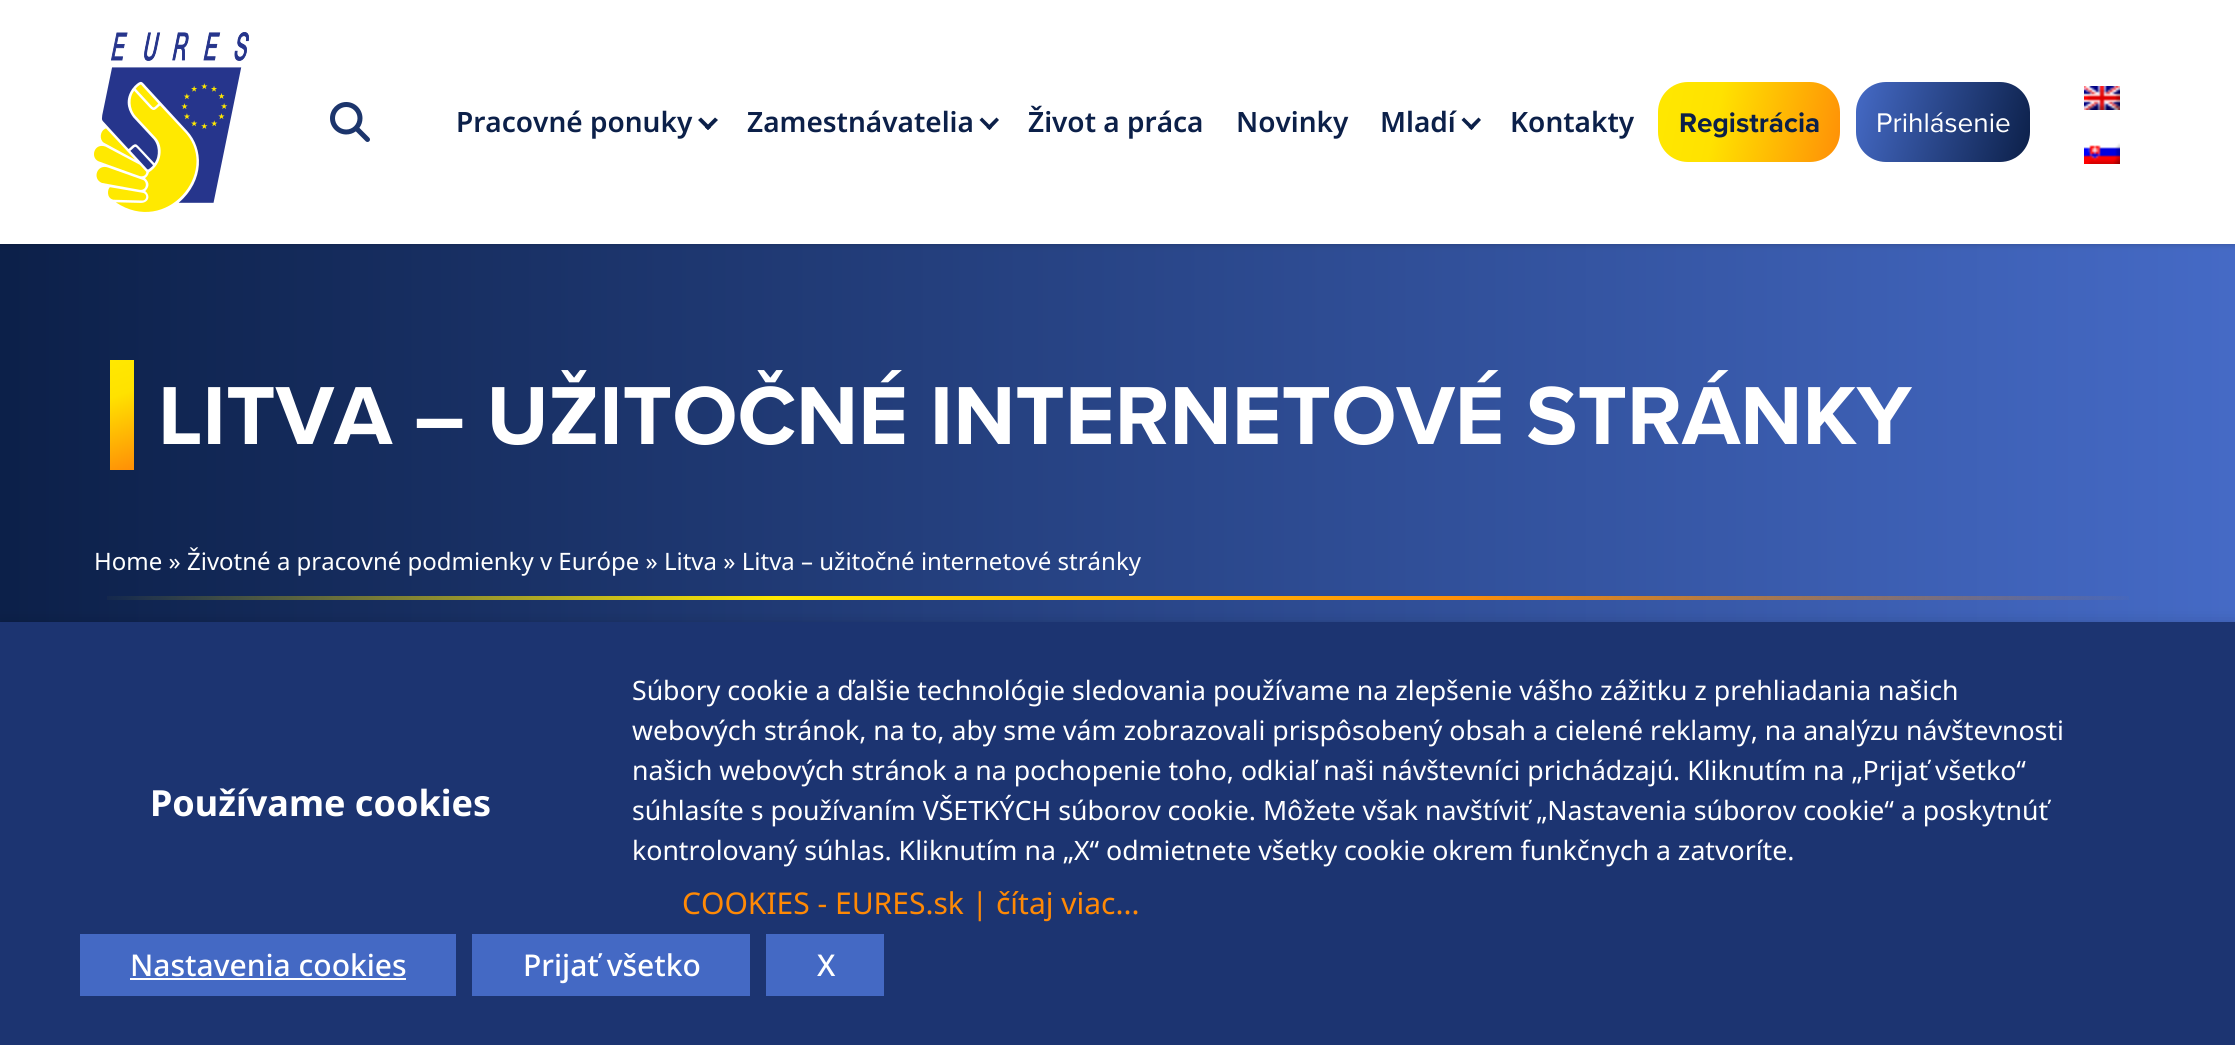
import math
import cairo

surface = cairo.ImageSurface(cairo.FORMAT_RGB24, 2235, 1045)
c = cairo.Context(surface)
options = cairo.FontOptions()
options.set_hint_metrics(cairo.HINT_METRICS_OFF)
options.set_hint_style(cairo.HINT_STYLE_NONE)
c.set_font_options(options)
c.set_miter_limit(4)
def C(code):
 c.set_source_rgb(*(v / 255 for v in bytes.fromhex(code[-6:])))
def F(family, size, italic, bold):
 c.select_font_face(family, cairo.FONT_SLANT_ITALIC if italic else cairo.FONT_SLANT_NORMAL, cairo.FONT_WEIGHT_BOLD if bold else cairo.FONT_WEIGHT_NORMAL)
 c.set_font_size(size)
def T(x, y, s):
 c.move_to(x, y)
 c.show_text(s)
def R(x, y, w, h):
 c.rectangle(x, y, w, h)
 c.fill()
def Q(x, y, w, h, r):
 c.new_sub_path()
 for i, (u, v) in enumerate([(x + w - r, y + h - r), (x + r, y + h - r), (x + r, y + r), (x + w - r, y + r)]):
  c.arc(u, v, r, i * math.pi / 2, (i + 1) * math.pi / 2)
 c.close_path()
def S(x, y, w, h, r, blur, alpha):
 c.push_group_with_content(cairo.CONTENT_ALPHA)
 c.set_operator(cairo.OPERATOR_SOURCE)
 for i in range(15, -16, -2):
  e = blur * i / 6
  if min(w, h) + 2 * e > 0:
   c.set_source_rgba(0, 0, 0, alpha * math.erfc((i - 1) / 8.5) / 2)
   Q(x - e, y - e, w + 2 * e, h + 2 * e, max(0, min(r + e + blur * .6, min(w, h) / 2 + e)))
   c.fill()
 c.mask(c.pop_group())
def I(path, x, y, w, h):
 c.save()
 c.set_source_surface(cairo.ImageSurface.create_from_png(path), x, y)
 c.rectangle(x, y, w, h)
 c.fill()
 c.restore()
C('ffffff')
c.paint()
gradient = cairo.LinearGradient(0,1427,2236,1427)
gradient.add_color_stop_rgba(0,0.047,0.125,0.286,1)
gradient.add_color_stop_rgba(1,0.271,0.416,0.776,1)
c.set_source(gradient)
R(0,244,2235,378)
C('000000')
S(2,4,2232,240,0,2,.1)
S(0,2,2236,244,0,3,.1)
C('ffffff')
R(0,0,2235,244)
I('1.png',94,32,155,180)
I('2.png',330,102,40,40)
F('Noto Sans SemiBold',28,0,0)
C('0c2049')
T(456,132,'Pracovné ponuky')
c.new_path()
c.move_to(715,117.5)
c.line_to(718,120)
c.line_to(708,130)
c.line_to(705,127.5)
c.close_path()
c.fill()
c.new_path()
c.move_to(701,117.5)
c.line_to(711,127.5)
c.line_to(708,130)
c.line_to(698,120)
c.close_path()
c.fill()
T(747,132,'Zamestnávatelia')
c.new_path()
c.move_to(996.5,117.5)
c.line_to(999,120)
c.line_to(989.5,130)
c.line_to(986.5,127.5)
c.close_path()
c.fill()
c.new_path()
c.move_to(982,117.5)
c.line_to(992,127.5)
c.line_to(989.5,130)
c.line_to(979.5,120)
c.close_path()
c.fill()
T(1028,132,'Život a práca')
T(1236,132,'Novinky')
T(1380,132,'Mladí')
c.new_path()
c.move_to(1478.5,117.5)
c.line_to(1481,120)
c.line_to(1471.5,130)
c.line_to(1468.5,127.5)
c.close_path()
c.fill()
c.new_path()
c.move_to(1464,117.5)
c.line_to(1474,127.5)
c.line_to(1471.5,130)
c.line_to(1461.5,120)
c.close_path()
c.fill()
T(1510,132,'Kontakty')
gradient = cairo.LinearGradient(1654,102,1844,142)
gradient.add_color_stop_rgba(0,1,0.91,0,1)
gradient.add_color_stop_rgba(.33,1,0.886,0,1)
gradient.add_color_stop_rgba(1,1,0.561,0.027,1)
c.set_source(gradient)
Q(1658,82,182,80,30)
c.fill()
F('Proxima Nova',28,0,1)
C('0c2049')
T(1679,132,'Registrácia')
gradient = cairo.LinearGradient(1852,98,2034,146)
gradient.add_color_stop_rgba(0,0.271,0.416,0.776,1)
gradient.add_color_stop_rgba(1,0.047,0.125,0.286,1)
c.set_source(gradient)
Q(1856,82,174,80,30)
c.fill()
F('Proxima Nova',28,0,0)
C('ffffff')
T(1876,132,'Prihlásenie')
I('3.png',2084,86,36,24)
I('4.png',2084,143,36,21)
gradient = cairo.LinearGradient(103,363,141,467)
gradient.add_color_stop_rgba(0,1,0.91,0,1)
gradient.add_color_stop_rgba(.32,1,0.886,0,1)
gradient.add_color_stop_rgba(1,1,0.561,0.027,1)
c.set_source(gradient)
R(110,360,24,110)
F('Proxima Nova',85.3,0,1)
C('ffffff')
T(158,444,'LITVA – UŽITOČNÉ INTERNETOVÉ STRÁNKY')
I('5.png',107,596,2022,4)
F('Noto Sans',24,0,0)
T(94,570,'Home » Životné a pracovné podmienky v Európe » Litva » Litva – užitočné internetové stránky')
C('000000')
S(0,632,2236,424,0,10,.5)
C('1c3471')
R(0,622,2235,423)
F('Noto Sans',36,0,1)
C('ffffff')
T(150,816,'Používame cookies')
F('Noto Sans',26.67,0,0)
T(632,700,'Súbory cookie a ďalšie technológie sledovania používame na zlepšenie vášho zážitku z prehliadania našich')
T(632,740,'webových stránok, na to, aby sme vám zobrazovali prispôsobený obsah a cielené reklamy, na analýzu návštevnosti')
T(632,780,'našich webových stránok a na pochopenie toho, odkiaľ naši návštevníci prichádzajú. Kliknutím na „Prijať všetko“')
T(632,820,'súhlasíte s používaním VŠETKÝCH súborov cookie. Môžete však navštíviť „Nastavenia súborov cookie“ a poskytnúť')
T(632,860,'kontrolovaný súhlas. Kliknutím na „X“ odmietnete všetky cookie okrem funkčnych a zatvoríte.')
F('Noto Sans',30,0,0)
C('ff8905')
T(682,914,'COOKIES - EURES.sk | čítaj viac...')
C('4469c4')
R(80,934,376,62)
F('Noto Sans Medium',30,0,0)
C('ffffff')
T(130,976,'Nastavenia cookies')
R(130,978,276,2)
C('4469c4')
R(472,934,278,62)
C('ffffff')
T(523,976,'Prijať všetko')
C('4469c4')
R(766,934,118,62)
C('ffffff')
T(817,976,'X')
surface.write_to_png('o.png')
